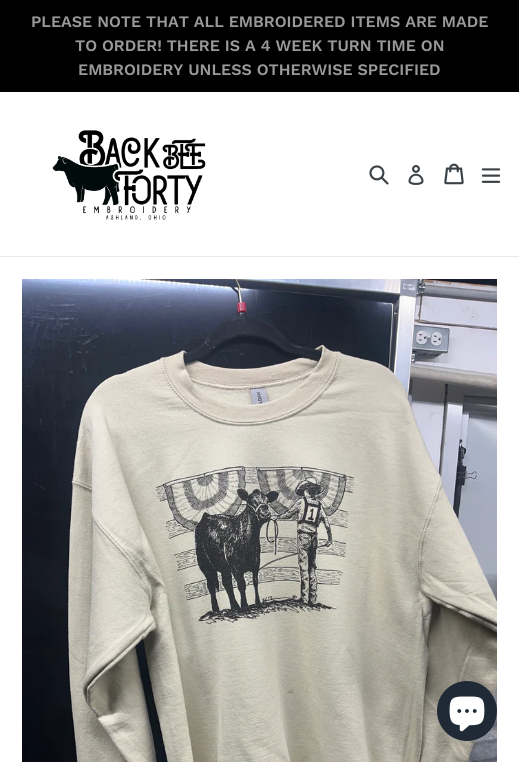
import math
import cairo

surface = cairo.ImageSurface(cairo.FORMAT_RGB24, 519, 762)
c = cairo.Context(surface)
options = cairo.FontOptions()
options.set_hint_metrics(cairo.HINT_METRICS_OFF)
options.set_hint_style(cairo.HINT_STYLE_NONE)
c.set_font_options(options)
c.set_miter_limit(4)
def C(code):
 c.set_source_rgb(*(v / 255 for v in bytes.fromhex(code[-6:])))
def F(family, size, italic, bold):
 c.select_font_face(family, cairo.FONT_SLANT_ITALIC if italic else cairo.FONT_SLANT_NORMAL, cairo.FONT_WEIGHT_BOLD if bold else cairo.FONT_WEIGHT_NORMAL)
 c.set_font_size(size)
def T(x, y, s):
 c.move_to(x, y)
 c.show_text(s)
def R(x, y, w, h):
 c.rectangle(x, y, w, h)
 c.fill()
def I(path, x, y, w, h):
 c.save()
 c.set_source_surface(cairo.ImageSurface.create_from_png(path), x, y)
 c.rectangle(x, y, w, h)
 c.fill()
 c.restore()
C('ffffff')
c.paint()
C('000000')
R(0,0,519,92)
F('Work Sans SemiBold',16,0,0)
C('999999')
T(31,27,'PLEASE NOTE THAT ALL EMBROIDERED ITEMS ARE MADE')
T(75,51,'TO ORDER! THERE IS A 4 WEEK TURN TIME ON')
T(78,75,'EMBROIDERY UNLESS OTHERWISE SPECIFIED')
C('e8e9eb')
R(0,256,519,1)
I('1.png',52,130,154,91)
I('2.png',369,165,20,20)
I('3.png',408,165,16,20)
I('4.png',444,163,20,22)
I('5.png',481,168,20,15)
I('6.png',22,279,475,483)
C('202a36')
c.arc(467,711,30,0,2 * math.pi)
c.fill()
I('7.png',449,696,36,36)
surface.write_to_png('o.png')
